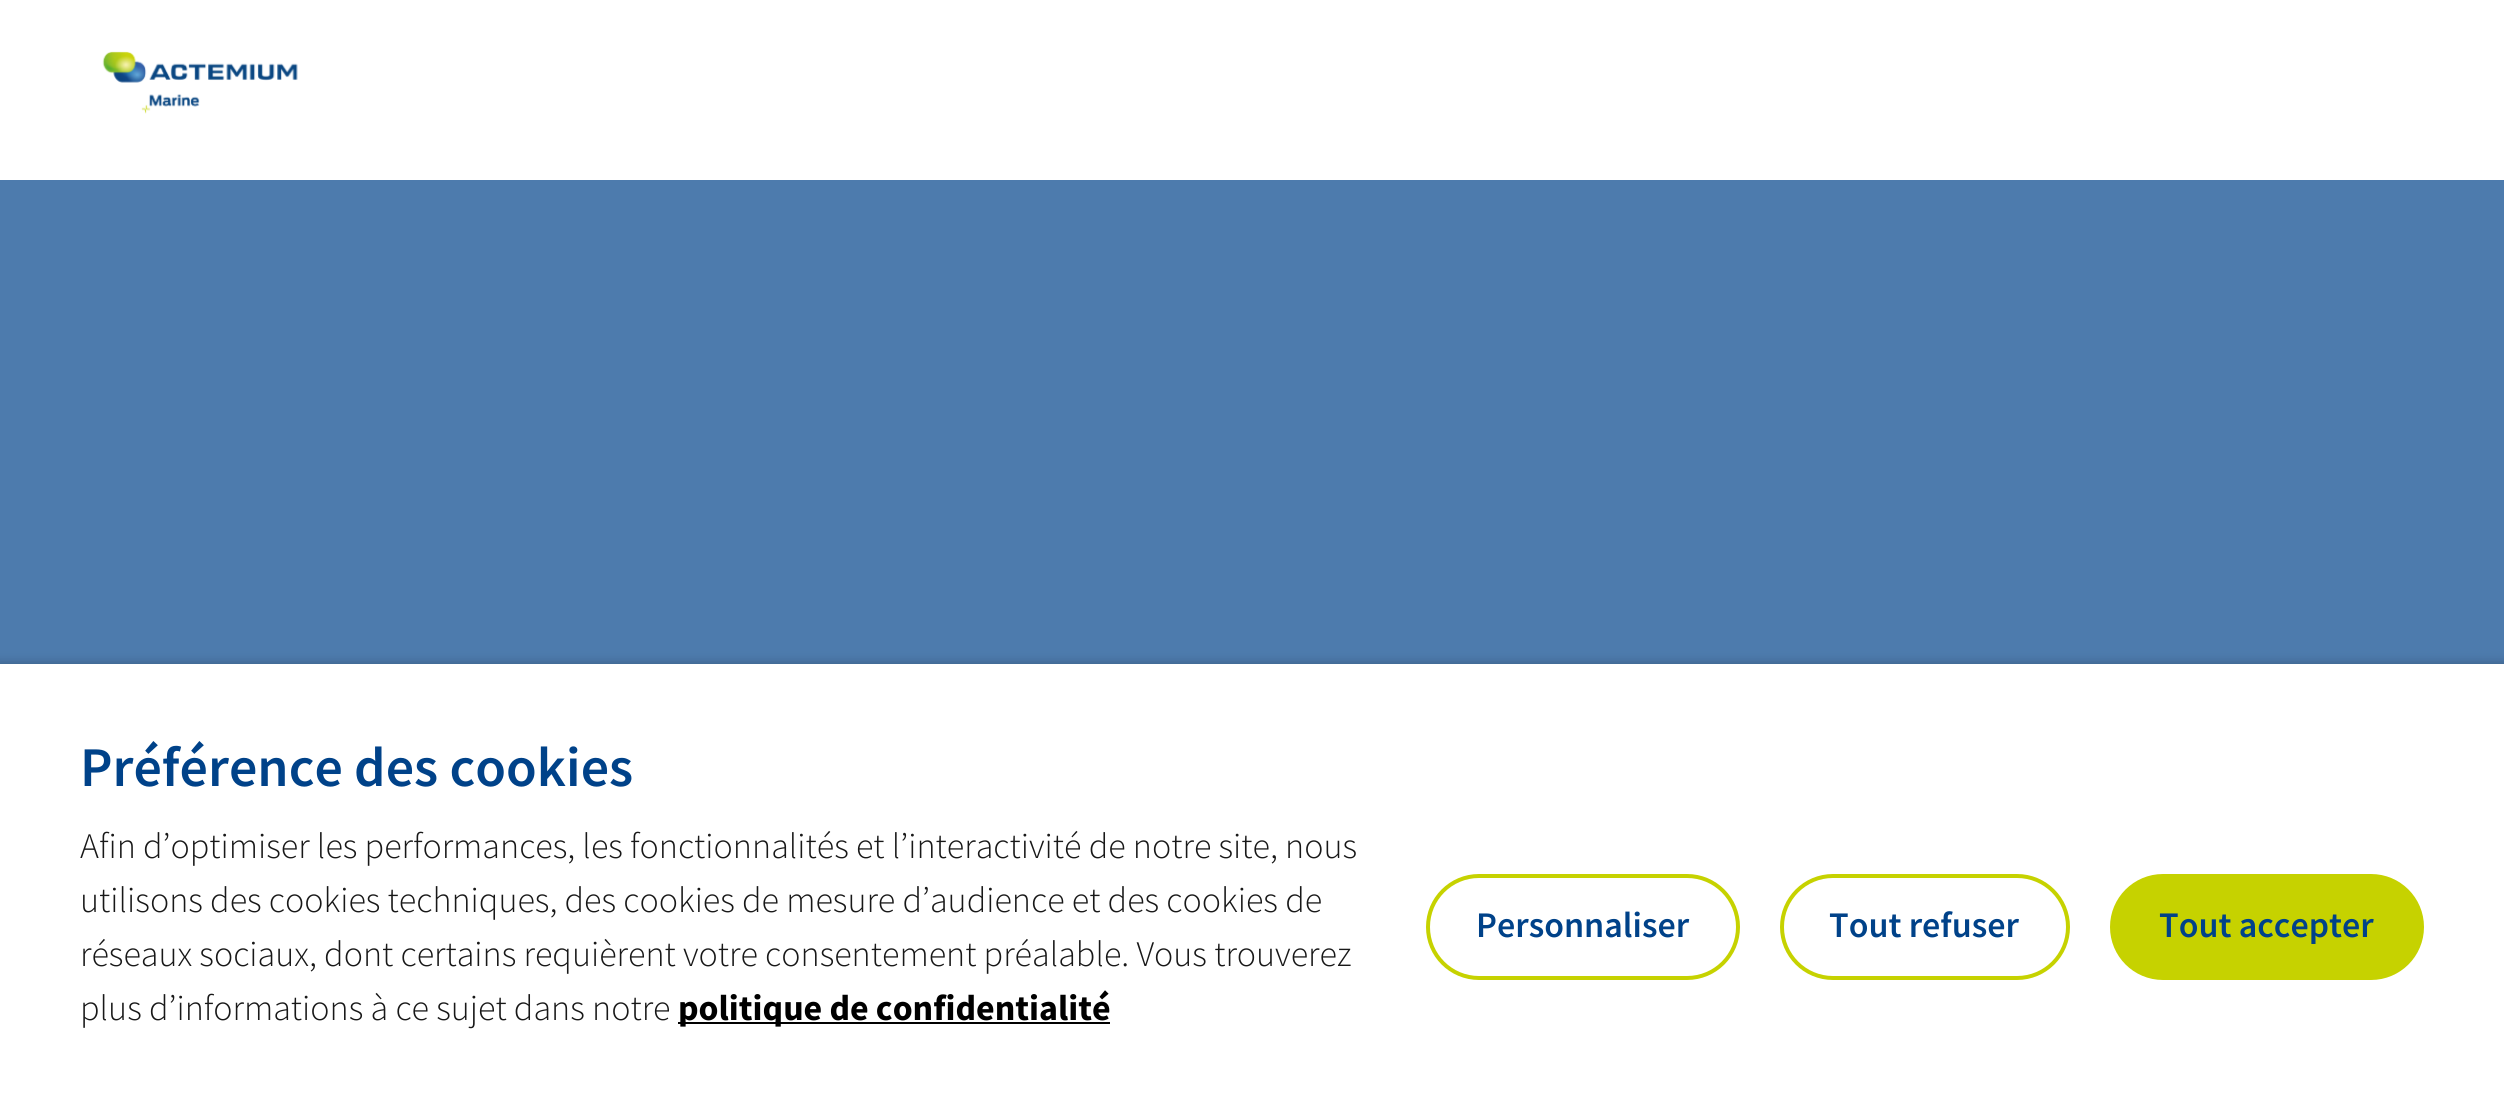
import math
import cairo

surface = cairo.ImageSurface(cairo.FORMAT_RGB24, 2504, 1104)
c = cairo.Context(surface)
options = cairo.FontOptions()
options.set_hint_metrics(cairo.HINT_METRICS_OFF)
options.set_hint_style(cairo.HINT_STYLE_NONE)
c.set_font_options(options)
c.set_miter_limit(4)
def C(code):
 c.set_source_rgb(*(v / 255 for v in bytes.fromhex(code[-6:])))
def F(family, size, italic, bold):
 c.select_font_face(family, cairo.FONT_SLANT_ITALIC if italic else cairo.FONT_SLANT_NORMAL, cairo.FONT_WEIGHT_BOLD if bold else cairo.FONT_WEIGHT_NORMAL)
 c.set_font_size(size)
def T(x, y, s):
 c.move_to(x, y)
 c.show_text(s)
def R(x, y, w, h):
 c.rectangle(x, y, w, h)
 c.fill()
def Q(x, y, w, h, r):
 c.new_sub_path()
 for i, (u, v) in enumerate([(x + w - r, y + h - r), (x + r, y + h - r), (x + r, y + r), (x + w - r, y + r)]):
  c.arc(u, v, r, i * math.pi / 2, (i + 1) * math.pi / 2)
 c.close_path()
def S(x, y, w, h, r, blur, alpha):
 c.push_group_with_content(cairo.CONTENT_ALPHA)
 c.set_operator(cairo.OPERATOR_SOURCE)
 for i in range(15, -16, -2):
  e = blur * i / 6
  if min(w, h) + 2 * e > 0:
   c.set_source_rgba(0, 0, 0, alpha * math.erfc((i - 1) / 8.5) / 2)
   Q(x - e, y - e, w + 2 * e, h + 2 * e, max(0, min(r + e + blur * .6, min(w, h) / 2 + e)))
   c.fill()
 c.mask(c.pop_group())
def I(path, x, y, w, h):
 c.save()
 c.set_source_surface(cairo.ImageSurface.create_from_png(path), x, y)
 c.rectangle(x, y, w, h)
 c.fill()
 c.restore()
C('ffffff')
c.paint()
I('1.png',102,51,196,63)
C('4d7bad')
R(0,180,2504,484)
C('000000')
S(-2,662,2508,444,0,5,.2)
C('ffffff')
R(0,664,2504,440)
F('Source Sans Pro SemiBold',56,0,0)
C('004289')
T(80,786,'Préférence des cookies')
F('Source Sans Pro Light',36,0,0)
C('181818')
T(80,858,'Afin d’optimiser les performances, les fonctionnalités et l’interactivité de notre site, nous')
T(80,912,'utilisons des cookies techniques, des cookies de mesure d’audience et des cookies de')
T(80,966,'réseaux sociaux, dont certains requièrent votre consentement préalable. Vous trouverez')
T(80,1020,'plus d’informations à ce sujet dans notre')
C('000000')
R(678,1022,432,2)
F('Source Sans Pro',36,0,1)
T(678,1020,'politique de confidentialité')
Q(1428,876,310,102,51)
C('c6d200')
c.set_line_width(4)
c.stroke()
F('Source Sans Pro SemiBold',36,0,0)
C('004289')
T(1476,937,'Personnaliser')
Q(1782,876,286,102,51)
C('c6d200')
c.stroke()
C('004289')
T(1829,937,'Tout refuser')
C('c6d200')
Q(2110,874,314,106,53)
c.fill()
C('004289')
T(2159,937,'Tout accepter')
surface.write_to_png('o.png')
